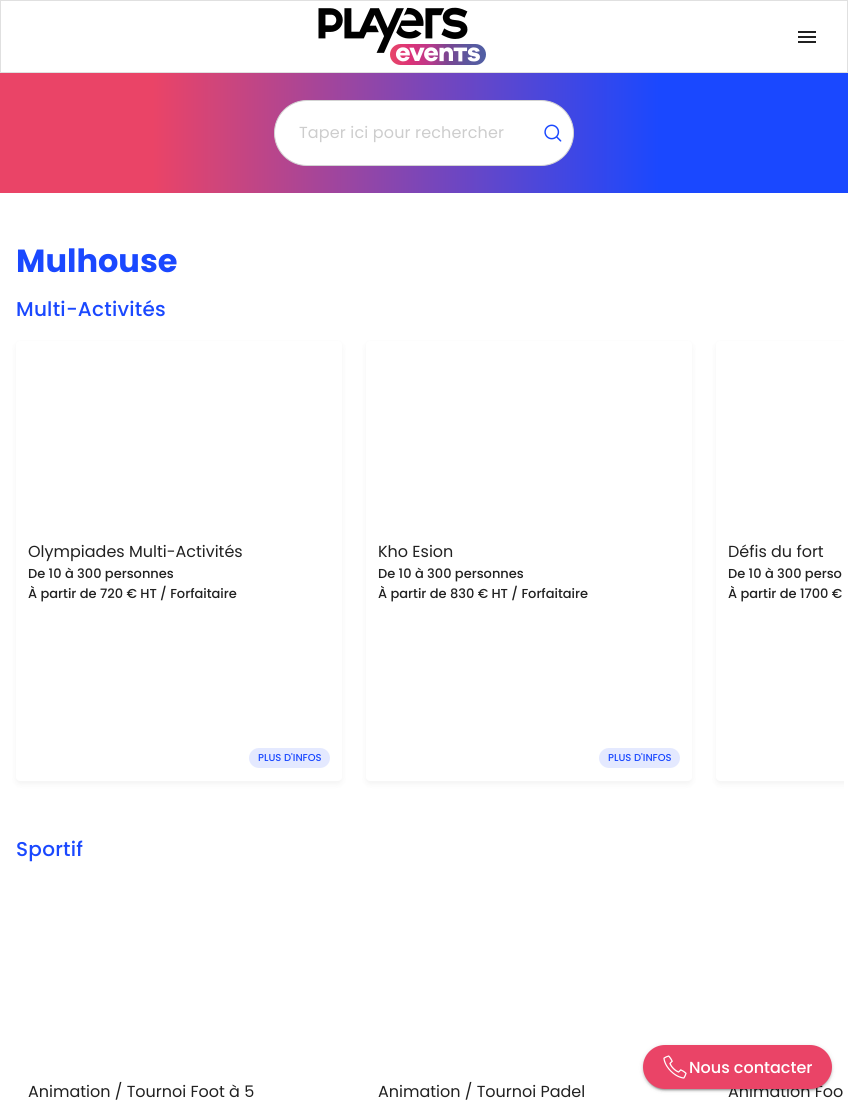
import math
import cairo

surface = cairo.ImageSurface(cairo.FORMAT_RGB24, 848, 1105)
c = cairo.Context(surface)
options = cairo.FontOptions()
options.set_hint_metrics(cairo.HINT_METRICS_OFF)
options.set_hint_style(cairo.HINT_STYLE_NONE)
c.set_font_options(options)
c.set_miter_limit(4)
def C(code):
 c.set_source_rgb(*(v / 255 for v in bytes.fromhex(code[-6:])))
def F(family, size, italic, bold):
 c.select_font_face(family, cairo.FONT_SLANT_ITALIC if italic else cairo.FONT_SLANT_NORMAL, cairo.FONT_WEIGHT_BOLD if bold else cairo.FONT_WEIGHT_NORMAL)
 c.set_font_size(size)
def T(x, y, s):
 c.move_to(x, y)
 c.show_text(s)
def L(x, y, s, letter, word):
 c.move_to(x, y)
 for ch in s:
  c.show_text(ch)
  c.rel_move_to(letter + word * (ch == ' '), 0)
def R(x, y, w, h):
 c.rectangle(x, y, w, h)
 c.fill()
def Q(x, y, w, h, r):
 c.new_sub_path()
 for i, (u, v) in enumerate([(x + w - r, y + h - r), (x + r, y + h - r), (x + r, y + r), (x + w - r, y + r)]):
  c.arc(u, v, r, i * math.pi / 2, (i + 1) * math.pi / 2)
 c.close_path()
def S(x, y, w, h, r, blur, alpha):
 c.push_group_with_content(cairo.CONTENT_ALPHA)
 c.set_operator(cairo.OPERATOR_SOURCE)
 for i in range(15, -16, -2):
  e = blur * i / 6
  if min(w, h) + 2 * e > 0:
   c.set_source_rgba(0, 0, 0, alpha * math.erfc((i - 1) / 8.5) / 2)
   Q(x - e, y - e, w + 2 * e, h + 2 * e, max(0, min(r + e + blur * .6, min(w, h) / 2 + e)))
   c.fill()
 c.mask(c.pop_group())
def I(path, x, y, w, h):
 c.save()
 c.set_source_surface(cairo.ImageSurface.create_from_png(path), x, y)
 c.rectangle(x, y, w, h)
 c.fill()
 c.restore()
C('ffffff')
c.paint()
c.rectangle(.5,.5,847,72)
C('e0e0e0')
c.set_line_width(1)
c.stroke()
I('1.png',318,7,168,58)
I('2.png',798,31,18,12)
gradient = cairo.LinearGradient(848,133,0,133)
gradient.add_color_stop_rgba(.22,0.102,0.282,1,1)
gradient.add_color_stop_rgba(.82,0.918,0.267,0.404,1)
c.set_source(gradient)
R(0,73,848,120)
C('ffffff')
Q(274.5,100.5,299,65,32.5)
c.fill_preserve()
C('d3d3d3')
c.stroke()
F('Poppins',16,0,0)
C('cdcdcd')
L(299,138,'Taper ici pour rechercher',.15,0)
I('3.png',544,124,18,18)
c.new_path()
c.move_to(553.5,110)
c.curve_to(567.5,110,567.5,156,553.5,156)
c.curve_to(539.5,156,539.5,110,553.5,110)
c.close_path()
C('ffffff')
c.set_line_width(2)
c.stroke()
F('Poppins',32,0,1)
C('1a48ff')
T(16,272,'Mulhouse')
F('Poppins Medium',20,0,0)
L(16,316,'Multi-Activités',.25,0)
C('000000')
S(16,344,326,440,4,3,.05)
C('ffffff')
Q(16,341,326,440,4)
c.fill()
F('Poppins',16,0,0)
C('212121')
T(28,557,'Olympiades Multi-Activités')
F('Poppins Medium',13,0,0)
T(28,578,'De 10 à 300 personnes')
T(28,598,'À partir de 720 € HT / Forfaitaire')
c.set_source_rgba(0.102,0.282,1,0.12)
Q(249,748,81,20,10)
c.fill()
F('Poppins Medium',10,0,0)
C('1a48ff')
T(258,761,'PLUS D\'INFOS')
C('000000')
S(366,344,326,440,4,3,.05)
C('ffffff')
Q(366,341,326,440,4)
c.fill()
F('Poppins',16,0,0)
C('212121')
T(378,557,'Kho Esion')
F('Poppins Medium',13,0,0)
T(378,578,'De 10 à 300 personnes')
T(378,598,'À partir de 830 € HT / Forfaitaire')
c.set_source_rgba(0.102,0.282,1,0.12)
Q(599,748,81,20,10)
c.fill()
F('Poppins Medium',10,0,0)
C('1a48ff')
T(608,761,'PLUS D\'INFOS')
c.save()
c.rectangle(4,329,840,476)
c.clip()
C('000000')
S(716,344,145,440,4,3,.05)
c.restore()
C('ffffff')
c.new_path()
c.move_to(720,341)
c.line_to(844,341)
c.line_to(844,781)
c.line_to(720,781)
c.curve_to(718,781,716,779,716,777)
c.line_to(716,345)
c.curve_to(716,343,718,341,720,341)
c.close_path()
c.fill()
F('Poppins',16,0,0)
C('212121')
T(728,557,'Défis du fort')
F('Poppins Medium',13,0,0)
T(728,578,'De 10 à 300 perso')
T(728,598,'À partir de 1700 €')
F('Poppins Medium',20,0,0)
C('1a48ff')
L(16,856,'Sportif',.25,0)
F('Poppins',16,0,0)
C('212121')
T(28,1097,'Animation / Tournoi Foot à 5')
T(378,1097,'Animation / Tournoi Padel')
T(728,1097,'Animation Foo')
C('000000')
S(643,1046,189,44,22,2.5,.12)
S(643,1047,189,44,22,1,.14)
S(645,1050,185,40,20,.5,.2)
C('ea4467')
Q(643,1045,189,44,22)
c.fill()
I('4.png',663,1055,24,24)
F('Poppins Medium',16,0,0)
C('ffffff')
T(689,1073,'Nous contacter')
surface.write_to_png('o.png')
